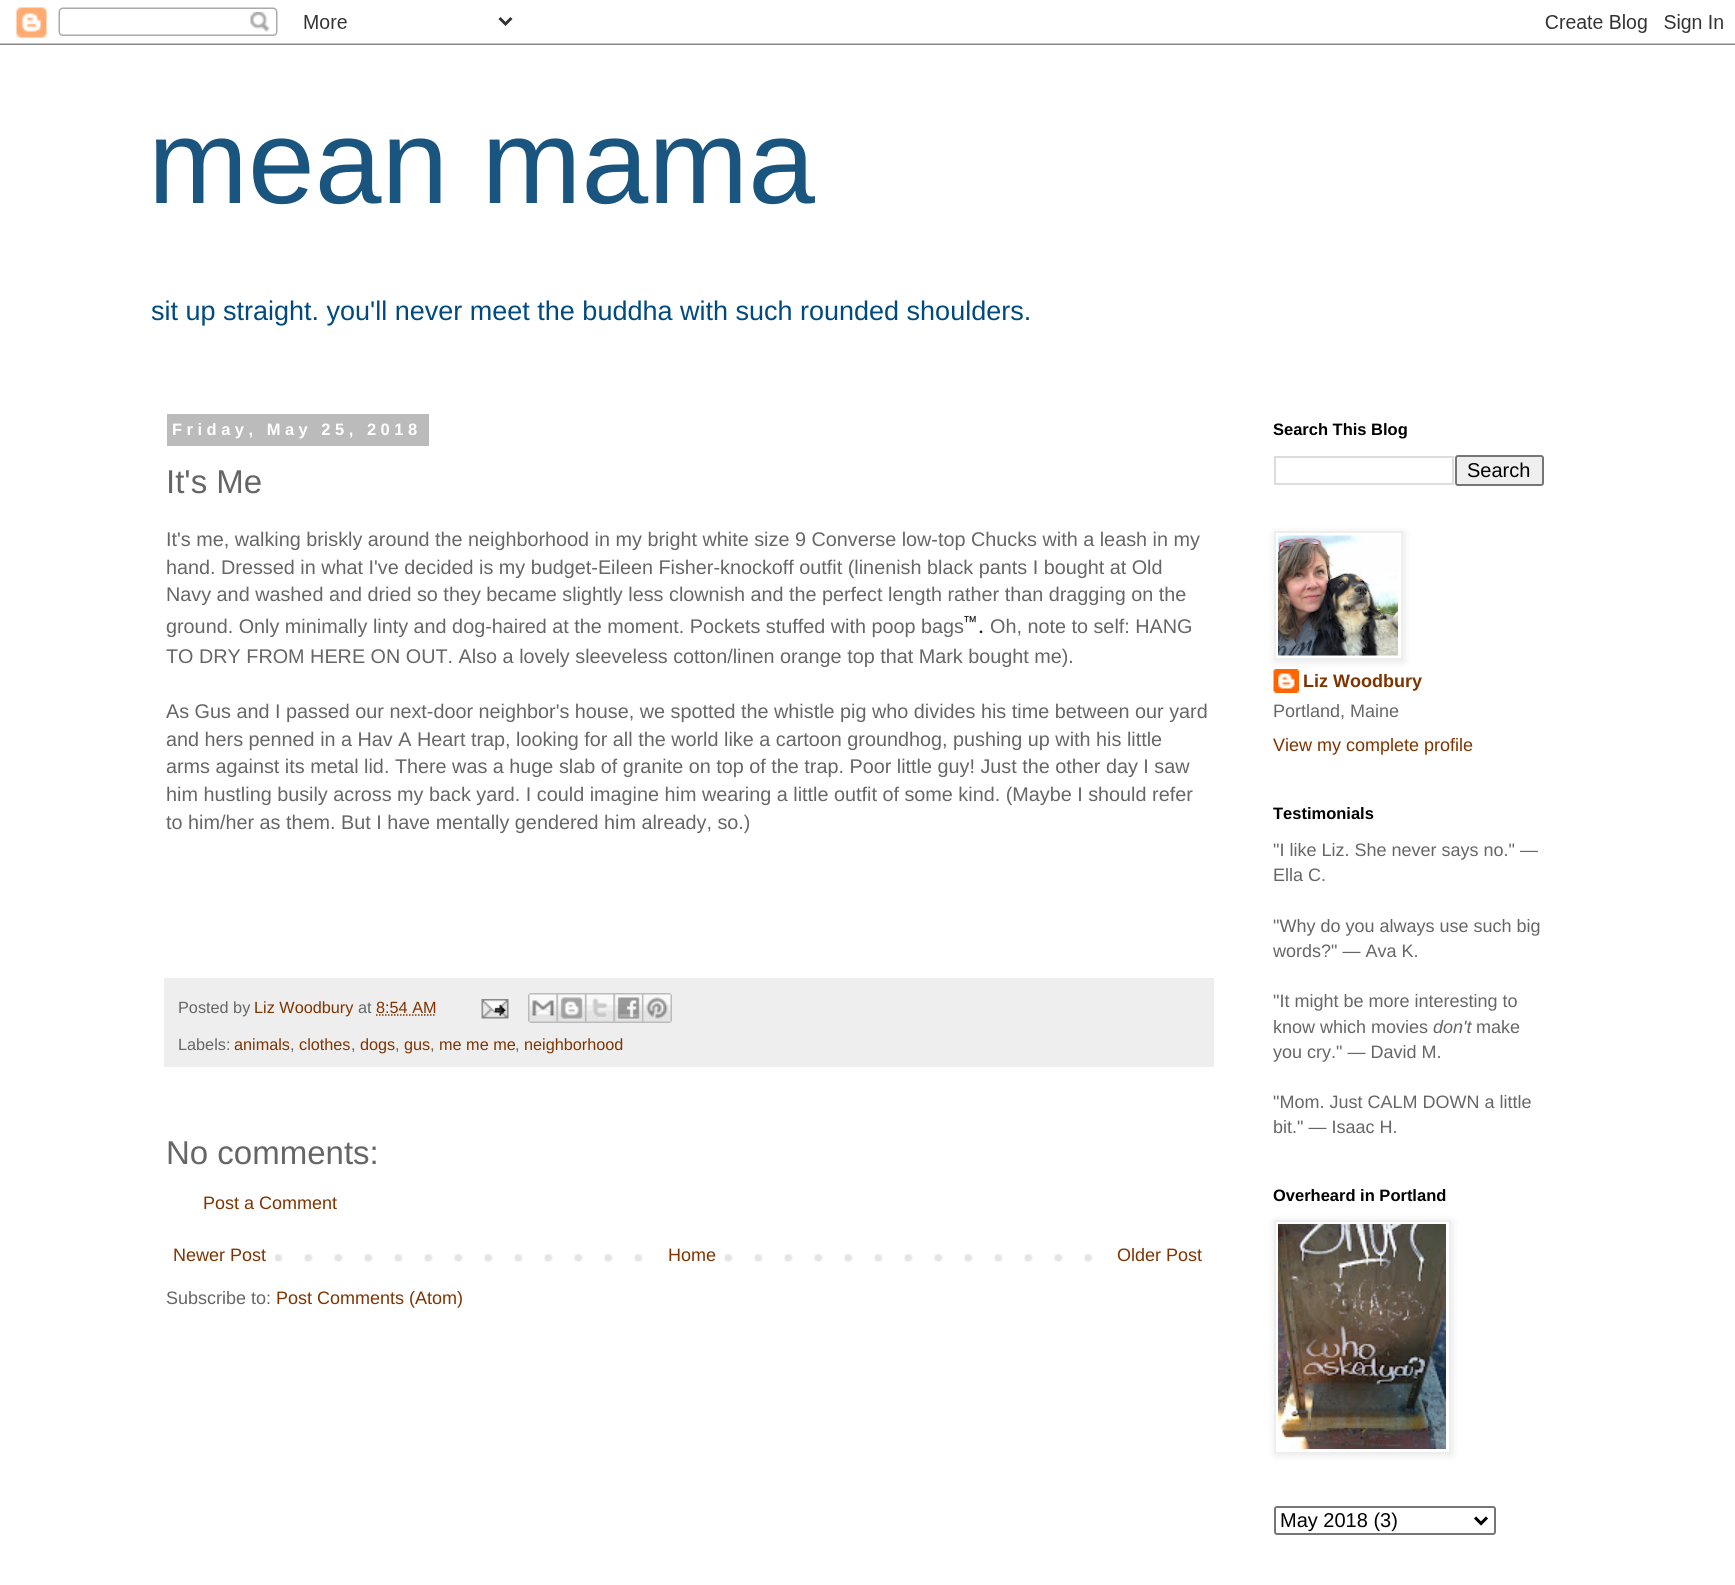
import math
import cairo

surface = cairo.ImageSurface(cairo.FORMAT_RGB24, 1735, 1585)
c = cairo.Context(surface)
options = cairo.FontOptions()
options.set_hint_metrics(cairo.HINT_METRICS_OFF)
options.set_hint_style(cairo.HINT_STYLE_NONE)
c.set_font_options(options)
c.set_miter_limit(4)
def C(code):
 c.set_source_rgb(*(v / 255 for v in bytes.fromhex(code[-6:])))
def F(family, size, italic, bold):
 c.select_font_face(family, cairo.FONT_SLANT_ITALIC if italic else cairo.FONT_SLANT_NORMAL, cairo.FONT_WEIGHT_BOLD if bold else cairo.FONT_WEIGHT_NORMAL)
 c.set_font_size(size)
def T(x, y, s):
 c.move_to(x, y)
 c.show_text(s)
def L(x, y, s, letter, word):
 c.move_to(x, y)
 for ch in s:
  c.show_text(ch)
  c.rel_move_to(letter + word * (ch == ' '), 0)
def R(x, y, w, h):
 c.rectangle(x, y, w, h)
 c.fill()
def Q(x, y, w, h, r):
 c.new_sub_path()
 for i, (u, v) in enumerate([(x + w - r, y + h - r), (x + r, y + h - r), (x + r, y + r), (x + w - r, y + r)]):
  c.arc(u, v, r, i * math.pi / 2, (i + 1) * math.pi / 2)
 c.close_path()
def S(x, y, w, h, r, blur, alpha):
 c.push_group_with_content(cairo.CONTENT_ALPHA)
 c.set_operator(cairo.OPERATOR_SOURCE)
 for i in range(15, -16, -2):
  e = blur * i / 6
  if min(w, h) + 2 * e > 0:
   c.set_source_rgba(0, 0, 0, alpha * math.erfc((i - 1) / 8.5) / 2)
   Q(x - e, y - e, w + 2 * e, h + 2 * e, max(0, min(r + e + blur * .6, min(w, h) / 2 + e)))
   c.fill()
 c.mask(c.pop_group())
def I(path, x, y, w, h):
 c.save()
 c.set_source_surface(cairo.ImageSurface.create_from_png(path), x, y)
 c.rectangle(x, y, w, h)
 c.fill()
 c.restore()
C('ffffff')
c.paint()
I('1.png',0,7,1735,38)
F('Liberation Sans',120,0,0)
C('19557f')
T(148,203,'mean mama')
F('Liberation Sans',27,0,0)
C('004a7f')
T(151,320,'sit up straight. you\'ll never meet the buddha with such rounded shoulders.')
C('bbbbbb')
R(167,414,262,32)
F('Liberation Sans',16.5,0,1)
C('ffffff')
L(172,435,'Friday, May 25, 2018',4.5,0)
F('Liberation Sans',33,0,0)
C('666666')
T(166,493,'It\'s Me')
F('Liberation Sans',19.8,0,0)
T(166,546,'It\'s me, walking briskly around the neighborhood in my bright white size 9 Converse low-top Chucks with a leash in my')
T(166,574,'hand. Dressed in what I\'ve decided is my budget-Eileen Fisher-knockoff outfit (linenish black pants I bought at Old')
T(166,601,'Navy and washed and dried so they became slightly less clownish and the perfect length rather than dragging on the')
T(166,633,'ground. Only minimally linty and dog-haired at the moment. Pockets stuffed with poop bags')
F('Roboto',24,0,0)
C('222222')
T(963,633,'™.')
F('Liberation Sans',19.8,0,0)
C('666666')
T(990,633,'Oh, note to self: HANG')
T(166,663,'TO DRY FROM HERE ON OUT. Also a lovely sleeveless cotton/linen orange top that Mark bought me).')
T(166,718,'As Gus and I passed our next-door neighbor\'s house, we spotted the whistle pig who divides his time between our yard')
T(166,746,'and hers penned in a Hav A Heart trap, looking for all the world like a cartoon groundhog, pushing up with his little')
T(166,773,'arms against its metal lid. There was a huge slab of granite on top of the trap. Poor little guy! Just the other day I saw')
T(166,801,'him hustling busily across my back yard. I could imagine him wearing a little outfit of some kind. (Maybe I should refer')
T(166,829,'to him/her as them. But I have mentally gendered him already, so.)')
C('eeeeee')
R(164,978,1050,89)
F('Liberation Sans',16.25,0,0)
C('666666')
T(178,1013,'Posted by')
C('7f3400')
T(254,1013,'Liz Woodbury')
C('666666')
T(358,1013,'at')
C('7f3400')
T(376,1013,'8:54 AM')
c.new_path()
c.move_to(376,1015)
c.line_to(436,1015)
c.set_line_width(1.5)
c.set_dash([1.5,1.5])
c.stroke()
I('2.png',481,999,28,20)
I('3.png',528,993,29,30)
I('4.png',556,993,29,30)
I('5.png',585,993,29,30)
I('6.png',613,993,29,30)
I('7.png',642,993,30,30)
C('666666')
T(178,1050,'Labels:')
C('7f3400')
T(234,1050,'animals')
C('666666')
T(290,1050,',')
C('7f3400')
T(299,1050,'clothes')
C('666666')
T(351,1050,',')
C('7f3400')
T(360,1050,'dogs')
C('666666')
T(395,1050,',')
C('7f3400')
T(404,1050,'gus')
C('666666')
T(430,1050,',')
C('7f3400')
T(439,1050,'me me me')
C('666666')
T(515,1050,',')
C('7f3400')
T(524,1050,'neighborhood')
F('Liberation Sans',33,0,0)
C('666666')
T(166,1164,'No comments:')
F('Liberation Sans',18,0,0)
C('7f3400')
T(203,1209,'Post a Comment')
I('8.png',275,1254,818,8)
T(173,1261,'Newer Post')
C('ffffff')
R(664,1254,39,8)
C('7f3400')
T(668,1261,'Home')
T(1117,1261,'Older Post')
C('666666')
T(166,1304,'Subscribe to:')
C('7f3400')
T(276,1304,'Post Comments (Atom)')
F('Liberation Sans',16.5,0,1)
C('000000')
T(1273,435,'Search This Blog')
c.rectangle(1275,457,178,27)
C('dddddd')
c.set_line_width(2)
c.set_dash([])
c.stroke()
C('efefef')
Q(1456,456,87,29,2)
c.fill_preserve()
C('767676')
c.stroke()
F('Liberation Sans',20,0,0)
C('000000')
T(1467,477,'Search')
I('10.png',1273,669,26,24)
C('000000')
S(1275,533,129,129,0,4,.1)
C('ffffff')
c.rectangle(1275,532,127,127)
c.fill_preserve()
C('eeeeee')
c.stroke()
I('9.png',1278,535,120,121)
F('Liberation Sans',18,0,1)
C('7f3400')
T(1303,687,'Liz Woodbury')
F('Liberation Sans',18,0,0)
C('666666')
T(1273,717,'Portland, Maine')
C('7f3400')
T(1273,751,'View my complete profile')
F('Liberation Sans',16.5,0,1)
C('000000')
T(1273,819,'Testimonials')
F('Liberation Sans',18,0,0)
C('666666')
T(1273,856,'"I like Liz. She never says no." —')
T(1273,881,'Ella C.')
T(1273,932,'"Why do you always use such big')
T(1273,957,'words?" — Ava K.')
T(1273,1007,'"It might be more interesting to')
T(1273,1033,'know which movies')
F('Liberation Sans',18,1,0)
T(1433,1033,'don\'t')
F('Liberation Sans',18,0,0)
T(1476,1033,'make')
T(1273,1058,'you cry." — David M.')
T(1273,1108,'"Mom. Just CALM DOWN a little')
T(1273,1133,'bit." — Isaac H.')
F('Liberation Sans',16.5,0,1)
C('000000')
T(1273,1201,'Overheard in Portland')
C('000000')
S(1275,1221,177,234,0,4,.1)
C('ffffff')
c.rectangle(1275,1221,175,232)
c.fill_preserve()
C('eeeeee')
c.stroke()
I('11.png',1278,1224,168,225)
Q(1275,1507,220,27,2)
C('767676')
c.stroke()
c.new_path()
c.move_to(1475,1517.5)
c.line_to(1481,1523.5)
c.line_to(1487,1517.5)
C('000000')
c.set_line_width(3)
c.stroke()
F('Liberation Sans',20,0,0)
T(1280,1527,'May 2018 (3)')
surface.write_to_png('o.png')
